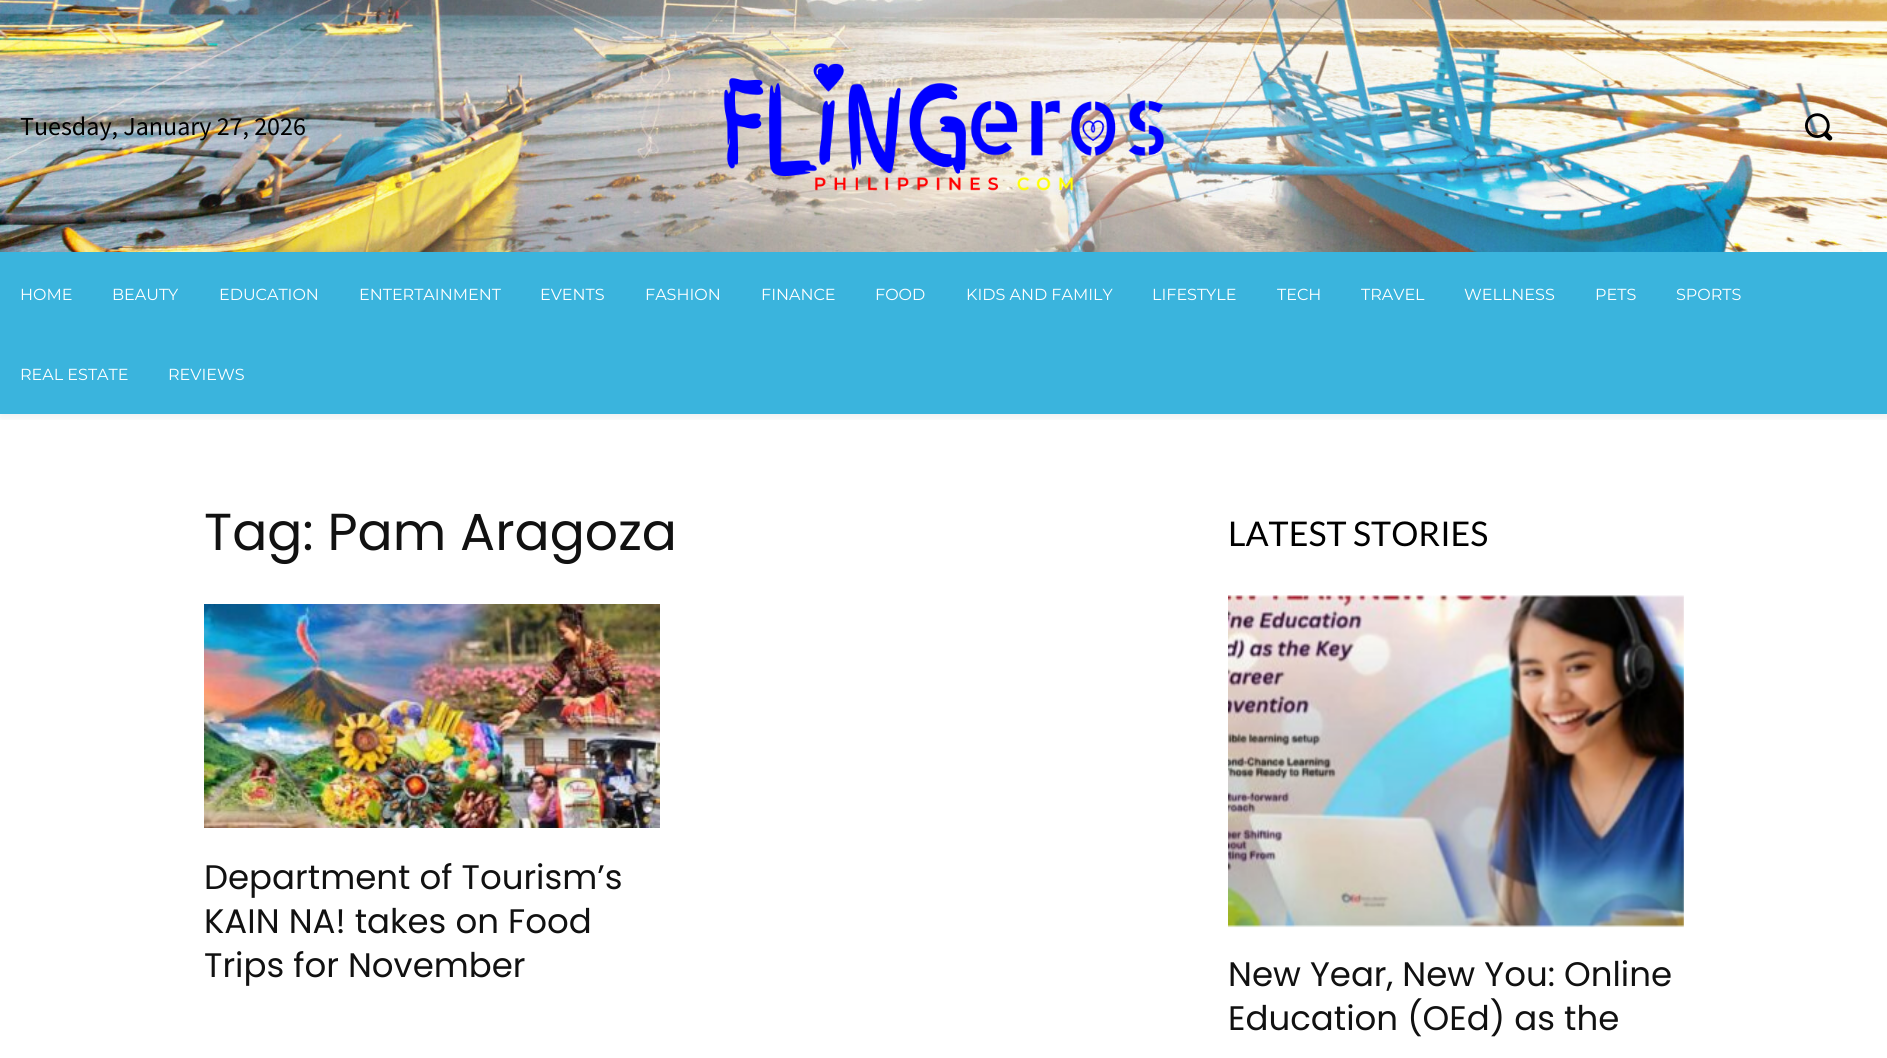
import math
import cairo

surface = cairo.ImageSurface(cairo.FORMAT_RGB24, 1887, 1058)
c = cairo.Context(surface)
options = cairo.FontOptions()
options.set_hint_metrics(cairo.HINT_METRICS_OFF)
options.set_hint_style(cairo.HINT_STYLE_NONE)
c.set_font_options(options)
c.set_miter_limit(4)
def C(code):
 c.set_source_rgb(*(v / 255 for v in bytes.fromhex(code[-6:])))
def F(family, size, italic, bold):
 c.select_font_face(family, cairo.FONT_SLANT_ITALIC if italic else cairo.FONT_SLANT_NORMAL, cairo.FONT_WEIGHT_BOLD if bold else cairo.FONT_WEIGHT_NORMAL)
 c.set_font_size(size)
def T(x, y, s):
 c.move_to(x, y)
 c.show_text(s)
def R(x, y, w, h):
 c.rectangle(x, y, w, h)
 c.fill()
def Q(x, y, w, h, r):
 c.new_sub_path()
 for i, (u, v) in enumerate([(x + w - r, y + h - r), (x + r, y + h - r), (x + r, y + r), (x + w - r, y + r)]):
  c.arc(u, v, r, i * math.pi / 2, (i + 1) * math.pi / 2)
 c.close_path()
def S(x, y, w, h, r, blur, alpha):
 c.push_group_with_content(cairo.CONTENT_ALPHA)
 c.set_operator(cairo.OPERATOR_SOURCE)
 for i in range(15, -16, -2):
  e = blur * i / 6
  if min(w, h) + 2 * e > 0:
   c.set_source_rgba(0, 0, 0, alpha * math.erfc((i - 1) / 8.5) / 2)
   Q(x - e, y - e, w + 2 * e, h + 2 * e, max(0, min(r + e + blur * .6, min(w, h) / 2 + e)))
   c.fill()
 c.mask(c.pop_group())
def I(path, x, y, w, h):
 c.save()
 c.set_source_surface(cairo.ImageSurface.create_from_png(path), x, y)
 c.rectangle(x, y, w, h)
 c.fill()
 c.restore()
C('ffffff')
c.paint()
I('1.png',0,0,1887,252)
F('Source Sans Pro',26,0,0)
C('000000')
T(20,135,'Tuesday, January 27, 2026')
I('2.png',723,63,441,128)
I('3.png',1805,113,28,28)
C('3ab4dd')
R(0,252,1887,162)
c.save()
c.rectangle(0,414,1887,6)
c.clip()
C('000000')
S(0,256,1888,162,0,4,.06)
c.restore()
F('Montserrat Thin',16,0,0)
C('ffffff')
T(20,300,'HOME')
T(112,300,'BEAUTY')
T(219,300,'EDUCATION')
T(359,300,'ENTERTAINMENT')
T(540,300,'EVENTS')
T(645,300,'FASHION')
T(761,300,'FINANCE')
T(875,300,'FOOD')
T(966,300,'KIDS AND FAMILY')
T(1152,300,'LIFESTYLE')
T(1277,300,'TECH')
T(1361,300,'TRAVEL')
T(1464,300,'WELLNESS')
T(1595,300,'PETS')
T(1676,300,'SPORTS')
T(20,380,'REAL ESTATE')
T(168,380,'REVIEWS')
F('Poppins',52,0,0)
C('111111')
T(204,550,'Tag: Pam Aragoza')
I('4.png',204,604,456,224)
F('Poppins',34,0,0)
T(204,889,'Department of Tourism’s')
T(204,933,'KAIN NA! takes on Food')
T(204,977,'Trips for November')
F('Lato',34,0,0)
C('000000')
T(1228,546,'LATEST STORIES')
I('5.png',1228,595,456,333)
F('Poppins',34,0,0)
C('111111')
T(1228,986,'New Year, New You: Online')
T(1228,1030,'Education (OEd) as the')
surface.write_to_png('o.png')
